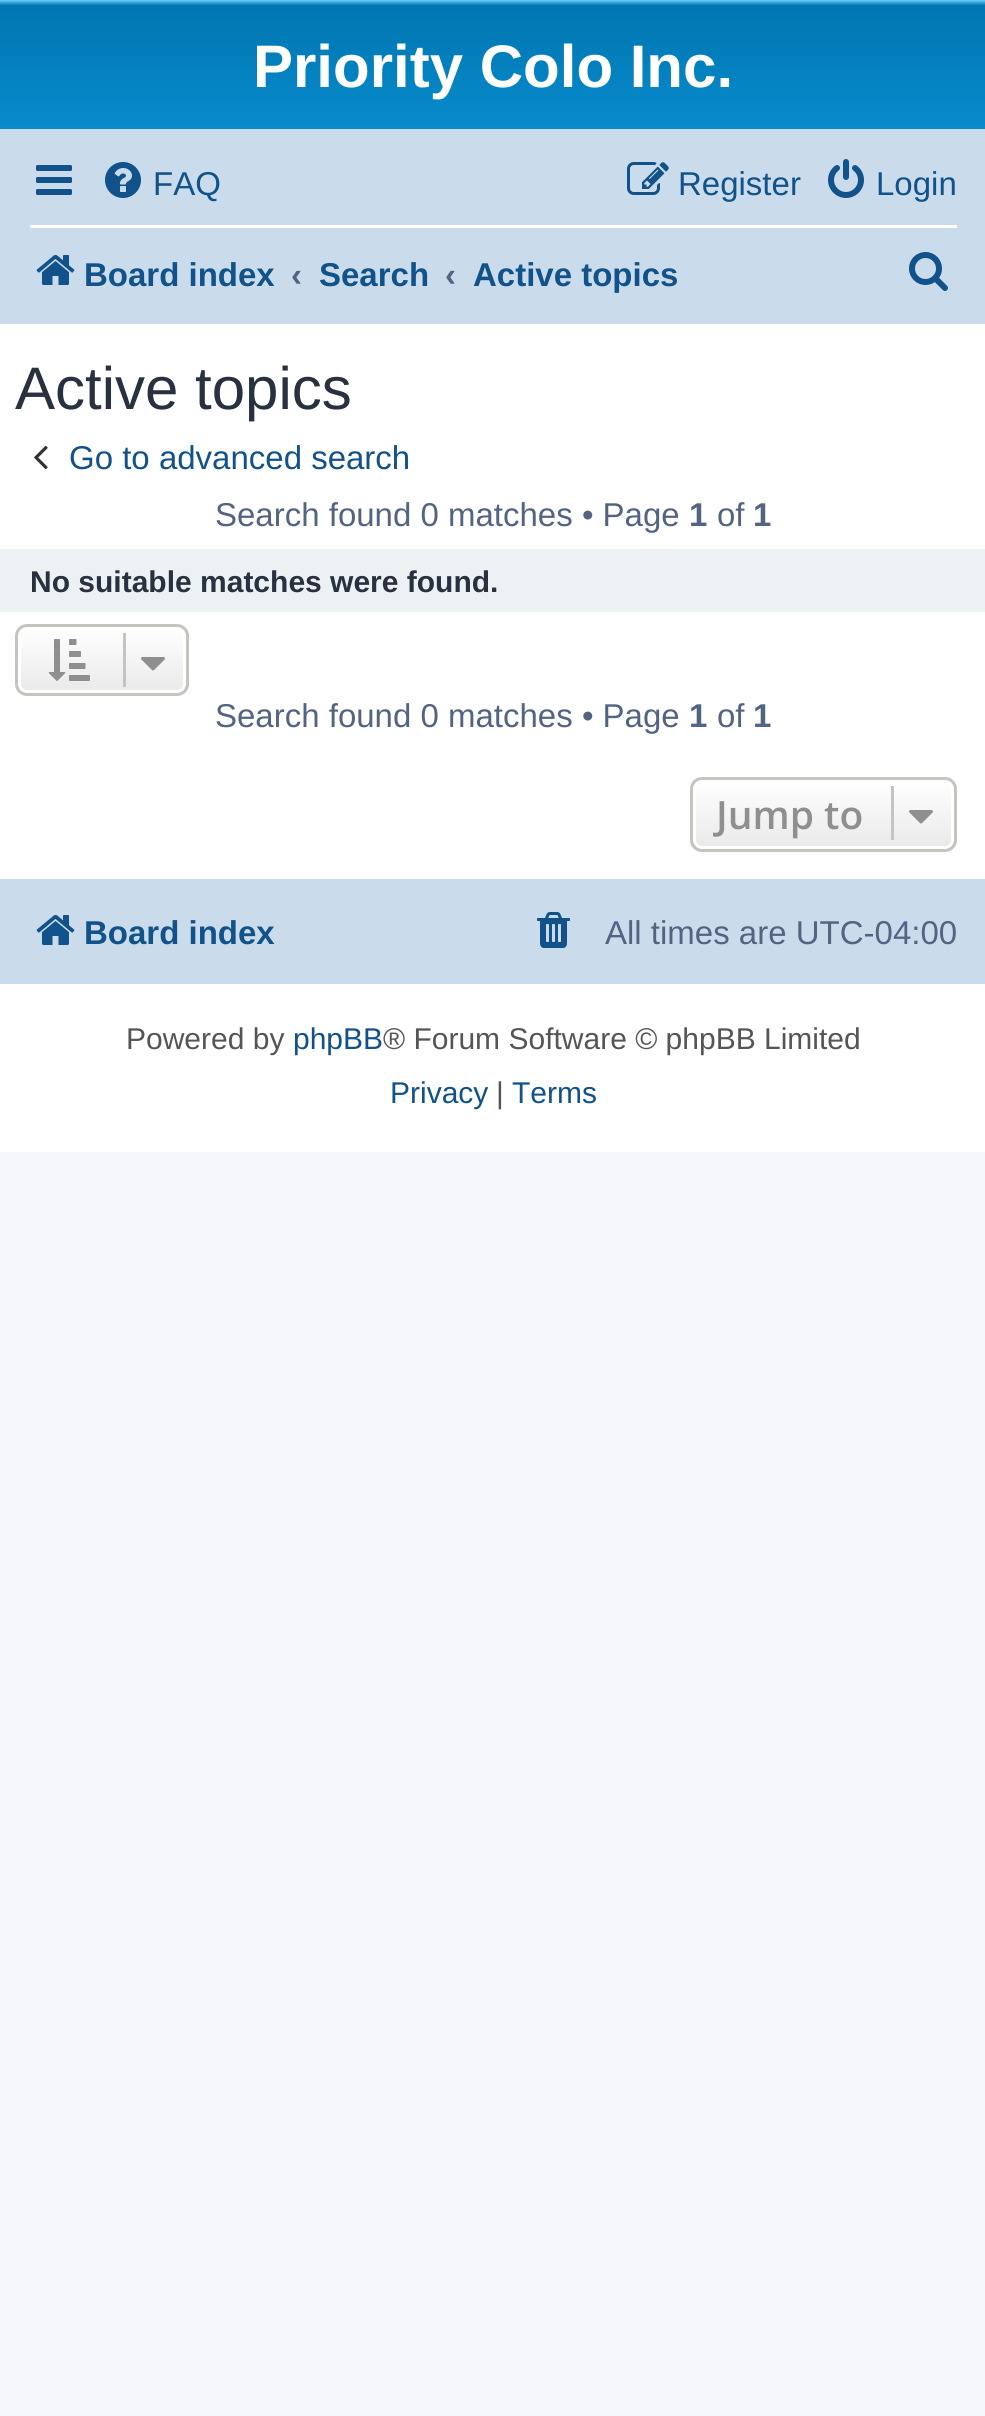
import math
import cairo

surface = cairo.ImageSurface(cairo.FORMAT_RGB24, 985, 2416)
c = cairo.Context(surface)
options = cairo.FontOptions()
options.set_hint_metrics(cairo.HINT_METRICS_OFF)
options.set_hint_style(cairo.HINT_STYLE_NONE)
c.set_font_options(options)
c.set_miter_limit(4)
def C(code):
 c.set_source_rgb(*(v / 255 for v in bytes.fromhex(code[-6:])))
def F(family, size, italic, bold):
 c.select_font_face(family, cairo.FONT_SLANT_ITALIC if italic else cairo.FONT_SLANT_NORMAL, cairo.FONT_WEIGHT_BOLD if bold else cairo.FONT_WEIGHT_NORMAL)
 c.set_font_size(size)
def T(x, y, s):
 c.move_to(x, y)
 c.show_text(s)
def R(x, y, w, h):
 c.rectangle(x, y, w, h)
 c.fill()
def Q(x, y, w, h, r):
 c.new_sub_path()
 for i, (u, v) in enumerate([(x + w - r, y + h - r), (x + r, y + h - r), (x + r, y + r), (x + w - r, y + r)]):
  c.arc(u, v, r, i * math.pi / 2, (i + 1) * math.pi / 2)
 c.close_path()
def I(path, x, y, w, h):
 c.save()
 c.set_source_surface(cairo.ImageSurface.create_from_png(path), x, y)
 c.rectangle(x, y, w, h)
 c.fill()
 c.restore()
C('f5f7fa')
c.paint()
C('ffffff')
R(0,324,985,828)
gradient = cairo.LinearGradient(494,0,494,276)
gradient.add_color_stop_rgba(0,0.416,0.808,1,1)
gradient.add_color_stop_rgba(.02,0,0.463,0.694,1)
gradient.add_color_stop_rgba(1,0.071,0.639,0.922,1)
c.set_source(gradient)
R(0,0,985,129)
F('Liberation Sans',60,0,1)
C('ffffff')
T(253,87,'Priority Colo Inc.')
C('cadceb')
R(0,129,985,195)
I('1.png',36,165,36,30)
I('2.png',105,162,36,36)
F('Liberation Sans',33,0,0)
C('105289')
T(153,195,'FAQ')
I('3.png',627,162,42,33)
T(678,195,'Register')
I('4.png',828,159,36,39)
T(876,195,'Login')
C('ffffff')
R(30,225,927,3)
I('5.png',36,254,39,31)
F('Liberation Sans',33,0,1)
C('105289')
T(84,286,'Board index')
C('536482')
T(291,286,'‹')
C('105289')
T(319,286,'Search')
C('536482')
T(445,286,'‹')
C('105289')
T(473,286,'Active topics')
I('6.png',909,252,39,39)
F('Liberation Sans',60,0,0)
C('28313f')
T(15,409,'Active topics')
I('7.png',34,445,14,25)
F('Liberation Sans',33,0,0)
C('105289')
T(69,469,'Go to advanced search')
C('536482')
T(215,526,'Search found 0 matches • Page')
F('Liberation Sans',33,0,1)
T(689,526,'1')
F('Liberation Sans',33,0,0)
T(717,526,'of')
F('Liberation Sans',33,0,1)
T(753,526,'1')
C('ecf1f3')
R(0,549,985,63)
F('Liberation Sans',30,0,1)
C('28313f')
T(30,592,'No suitable matches were found.')
c.save()
Q(15,624,174,72,12)
c.clip()
gradient = cairo.LinearGradient(102,627,102,693)
gradient.add_color_stop_rgba(0,1,1,1,1)
gradient.add_color_stop_rgba(1,0.914,0.914,0.914,1)
c.set_source(gradient)
R(15,627,174,66)
c.restore()
Q(19.5,628.5,165,63,7.5)
C('ffffff')
c.set_line_width(3)
c.stroke()
Q(16.5,625.5,171,69,10.5)
C('c7c3bf')
c.stroke()
I('8.png',48,639,42,42)
R(123,633,3,54)
I('9.png',141,657,24,14)
F('Liberation Sans',33,0,0)
C('536482')
T(215,727,'Search found 0 matches • Page')
F('Liberation Sans',33,0,1)
T(689,727,'1')
F('Liberation Sans',33,0,0)
T(717,727,'of')
F('Liberation Sans',33,0,1)
T(753,727,'1')
c.save()
Q(690,777,267,75,12)
c.clip()
gradient = cairo.LinearGradient(824,780,824,849)
gradient.add_color_stop_rgba(0,1,1,1,1)
gradient.add_color_stop_rgba(1,0.914,0.914,0.914,1)
c.set_source(gradient)
R(690,780,267,69)
c.restore()
Q(694.5,781.5,258,66,7.5)
C('ffffff')
c.stroke()
Q(691.5,778.5,264,72,10.5)
C('c7c3bf')
c.stroke()
F('Open Sans SemiBold',39,0,0)
C('8f8f8f')
T(716,829,'Jump to')
C('c7c3bf')
R(891,786,3,54)
I('10.png',909,810,24,14)
C('cadceb')
R(0,879,985,105)
I('5.png',36,914,39,31)
F('Liberation Sans',33,0,1)
C('105289')
T(84,944,'Board index')
I('11.png',537,912,33,36)
F('Liberation Sans',33,0,0)
C('536482')
T(605,944,'All times are UTC-04:00')
F('Liberation Sans',30,0,0)
C('555555')
T(126,1049,'Powered by')
C('105289')
T(293,1049,'phpBB')
C('555555')
T(383,1049,'® Forum Software © phpBB Limited')
C('105289')
T(390,1103,'Privacy')
C('555555')
T(496,1103,'|')
C('105289')
T(512,1103,'Terms')
surface.write_to_png('o.png')
